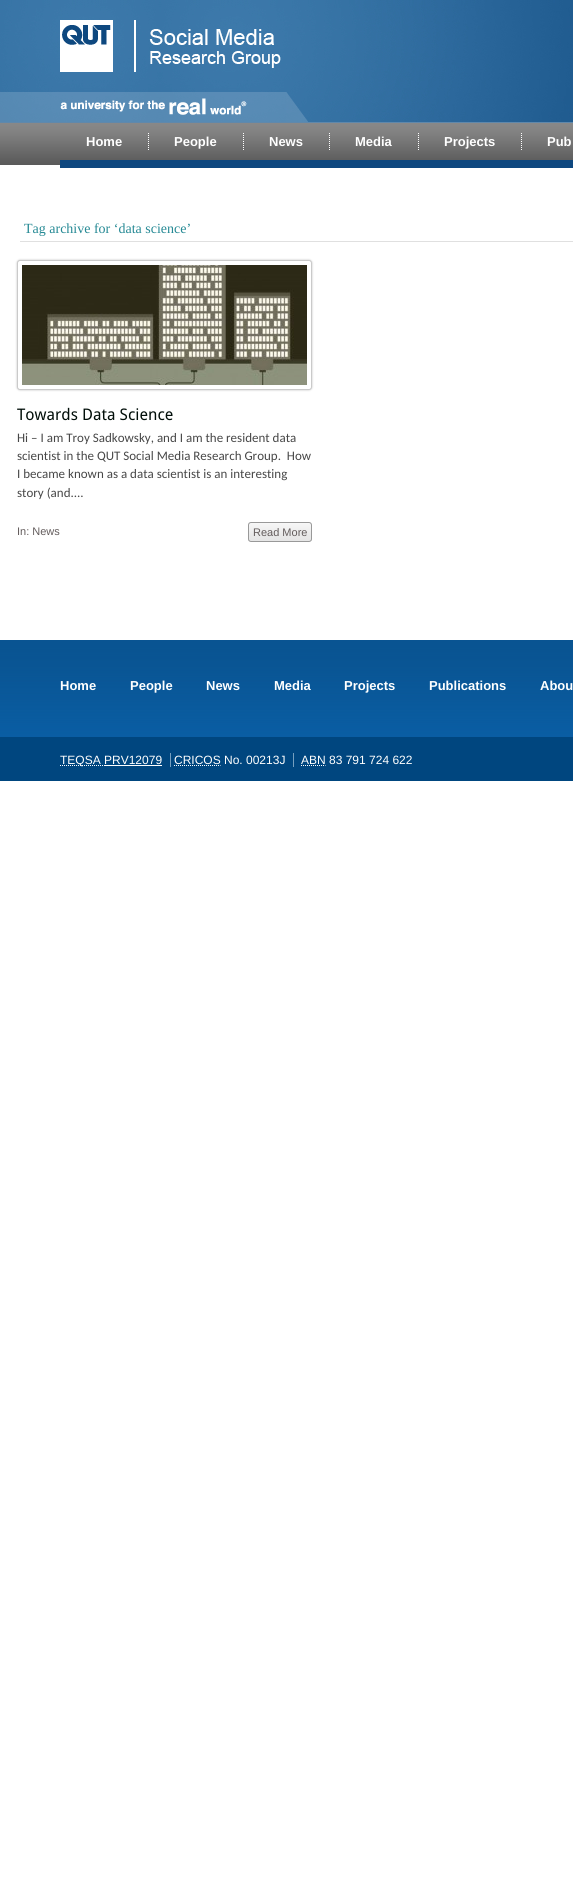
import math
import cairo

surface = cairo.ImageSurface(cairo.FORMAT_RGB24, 573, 1880)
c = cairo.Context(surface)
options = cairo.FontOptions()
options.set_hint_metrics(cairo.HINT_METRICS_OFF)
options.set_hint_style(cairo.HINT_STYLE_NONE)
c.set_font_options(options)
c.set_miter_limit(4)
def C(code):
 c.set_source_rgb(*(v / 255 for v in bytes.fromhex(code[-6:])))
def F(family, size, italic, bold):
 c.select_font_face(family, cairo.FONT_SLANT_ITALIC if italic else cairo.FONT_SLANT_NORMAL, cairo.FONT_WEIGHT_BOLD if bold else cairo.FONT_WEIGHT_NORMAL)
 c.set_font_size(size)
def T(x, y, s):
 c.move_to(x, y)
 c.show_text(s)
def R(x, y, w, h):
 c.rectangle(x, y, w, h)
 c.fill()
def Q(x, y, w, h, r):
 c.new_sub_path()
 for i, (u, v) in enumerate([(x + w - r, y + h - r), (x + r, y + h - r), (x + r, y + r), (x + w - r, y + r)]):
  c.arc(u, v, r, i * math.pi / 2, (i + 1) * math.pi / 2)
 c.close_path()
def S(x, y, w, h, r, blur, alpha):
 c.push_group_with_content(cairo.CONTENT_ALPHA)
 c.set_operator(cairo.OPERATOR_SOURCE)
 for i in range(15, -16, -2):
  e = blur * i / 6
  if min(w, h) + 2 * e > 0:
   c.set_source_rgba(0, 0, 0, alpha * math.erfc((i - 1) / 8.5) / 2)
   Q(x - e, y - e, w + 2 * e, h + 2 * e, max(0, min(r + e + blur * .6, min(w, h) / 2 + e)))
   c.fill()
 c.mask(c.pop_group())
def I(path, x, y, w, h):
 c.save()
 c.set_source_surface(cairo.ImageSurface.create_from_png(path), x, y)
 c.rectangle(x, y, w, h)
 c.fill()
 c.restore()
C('ffffff')
c.paint()
I('1.png',0,0,573,122)
I('2.png',60,20,221,52)
c.set_source_rgba(1,1,1,0.16)
R(0,92,286,30)
I('3.png',286,92,22,30)
I('4.png',60,98,187,17)
I('5.png',0,123,573,42)
C('6088ab')
R(0,122,573,1)
C('0e477f')
R(60,160,513,8)
F('Liberation Sans',13,0,1)
C('ffffff')
T(86,146,'Home')
c.new_path()
c.move_to(148.5,133)
c.line_to(148.5,151)
c.set_line_width(1)
c.set_dash([1,1])
c.stroke()
T(174,146,'People')
c.new_path()
c.move_to(243.5,133)
c.line_to(243.5,151)
c.stroke()
T(269,146,'News')
c.new_path()
c.move_to(329.5,133)
c.line_to(329.5,151)
c.stroke()
T(355,146,'Media')
c.new_path()
c.move_to(418.5,133)
c.line_to(418.5,151)
c.stroke()
T(444,146,'Projects')
c.new_path()
c.move_to(521.5,133)
c.line_to(521.5,151)
c.stroke()
T(547,146,'Pub')
C('e0e0e0')
R(20,241,553,1)
F('Liberation Serif',14,0,0)
C('258994')
T(24,233,'Tag archive for ‘data science’')
C('c3c3c3')
S(17,260,295,130,3,1,1)
C('ffffff')
Q(17.5,260.5,294,129,2.5)
c.fill_preserve()
C('cacaca')
c.set_dash([])
c.stroke()
I('6.png',22,265,285,120)
F('Droid Sans',16,0,0)
C('010e09')
T(17,420,'Towards Data Science')
F('Carlito',13,0,0)
C('474747')
T(17,442,'Hi – I am Troy Sadkowsky, and I am the resident data')
T(17,460,'scientist in the QUT Social Media Research Group.  How')
T(17,478,'I became known as a data scientist is an interesting')
T(17,497,'story (and....')
F('Liberation Sans',11,0,0)
C('635c5c')
T(17,535,'In: News')
I('7.png',248,522,64,19)
Q(248.5,522.5,63,19,2.5)
C('999999')
c.stroke()
C('635c5c')
T(253,536,'Read More')
I('8.png',0,640,573,97)
F('Liberation Sans',13,0,1)
C('ffffff')
T(60,690,'Home')
T(130,690,'People')
T(206,690,'News')
T(274,690,'Media')
T(344,690,'Projects')
T(429,690,'Publications')
T(540,690,'Abou')
C('00467f')
R(0,737,573,44)
c.new_path()
c.move_to(60,765.5)
c.line_to(104,765.5)
C('ffffff')
c.set_dash([1,1])
c.stroke()
F('Liberation Sans',12,0,0)
T(60,764,'TEQSA PRV12079')
C('769fbf')
R(170,753,1,14)
C('ffffff')
R(104,765,58,1)
T(174,764,'CRICOS No. 00213J')
C('769fbf')
R(293,753,1,14)
c.new_path()
c.move_to(174,765.5)
c.line_to(220.5,765.5)
C('ffffff')
c.stroke()
T(301,764,'ABN 83 791 724 622')
c.new_path()
c.move_to(301,765.5)
c.line_to(325.5,765.5)
c.stroke()
surface.write_to_png('o.png')
